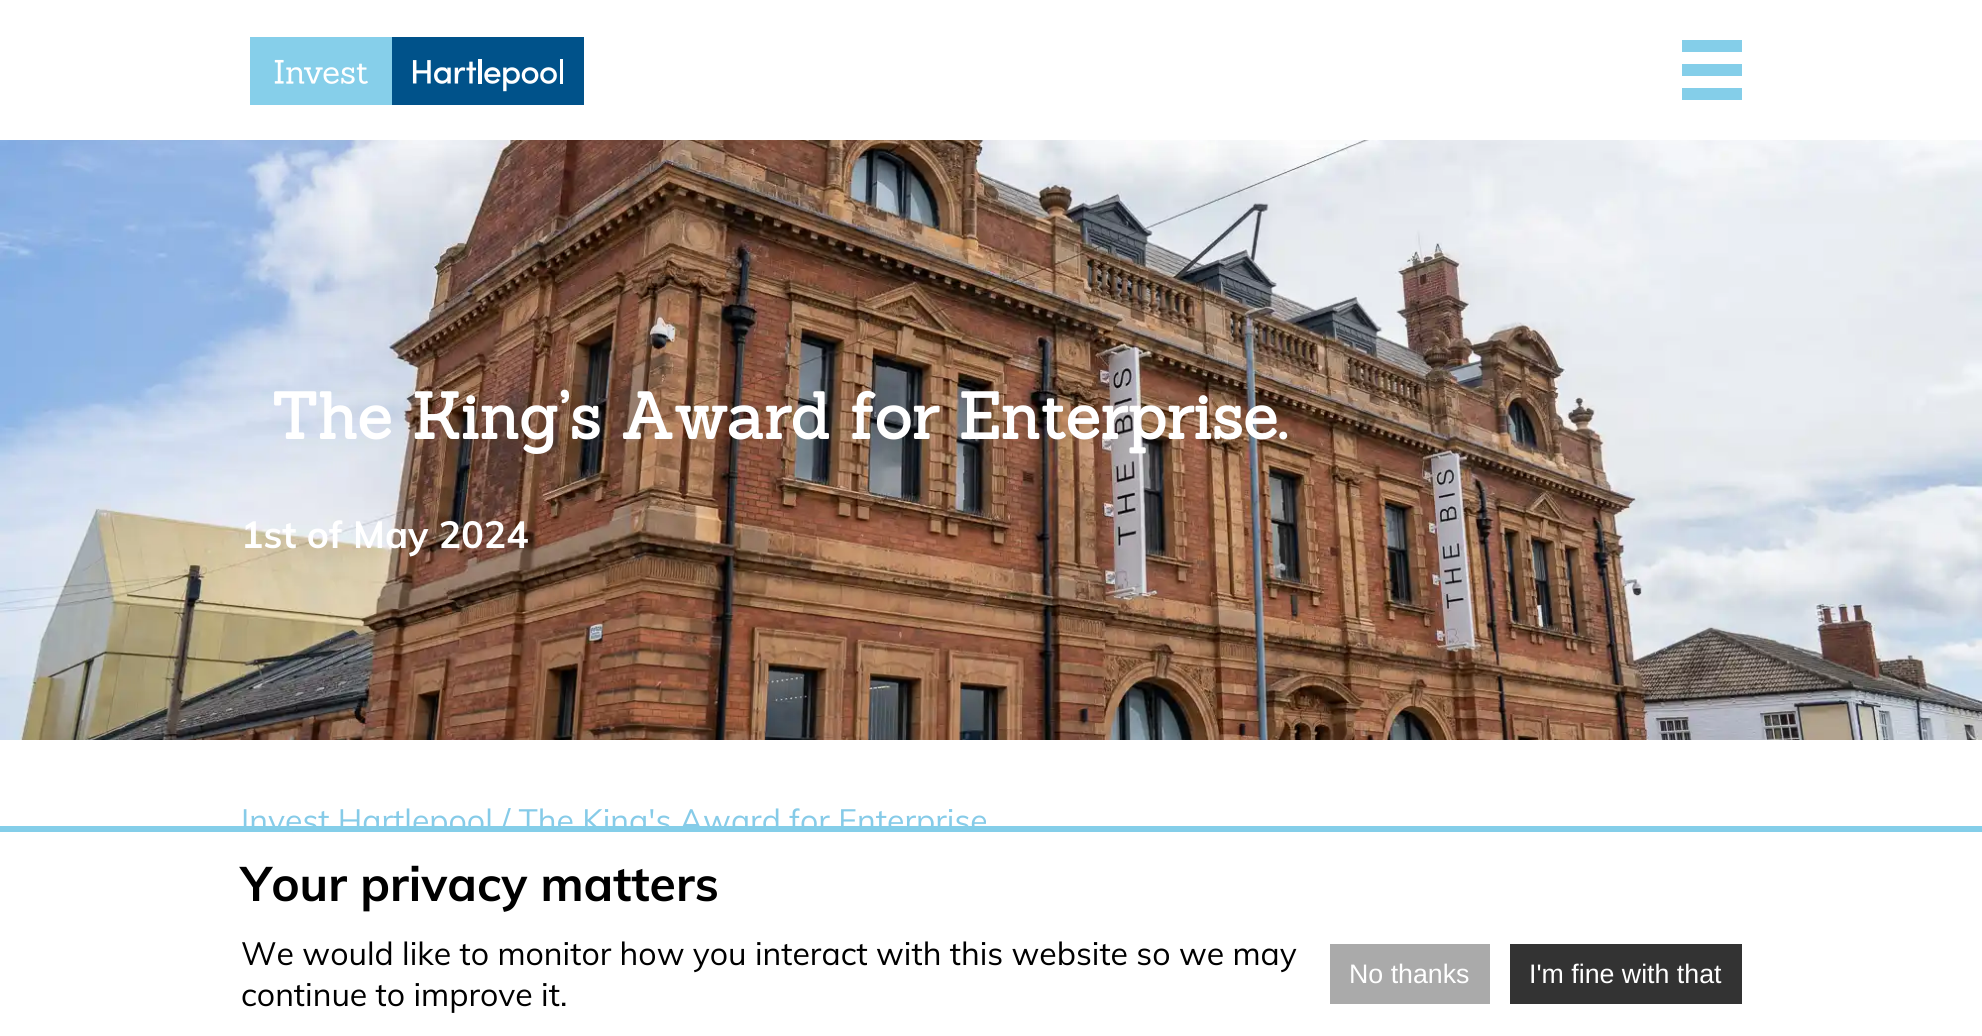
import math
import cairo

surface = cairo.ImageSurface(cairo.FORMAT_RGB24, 1982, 1036)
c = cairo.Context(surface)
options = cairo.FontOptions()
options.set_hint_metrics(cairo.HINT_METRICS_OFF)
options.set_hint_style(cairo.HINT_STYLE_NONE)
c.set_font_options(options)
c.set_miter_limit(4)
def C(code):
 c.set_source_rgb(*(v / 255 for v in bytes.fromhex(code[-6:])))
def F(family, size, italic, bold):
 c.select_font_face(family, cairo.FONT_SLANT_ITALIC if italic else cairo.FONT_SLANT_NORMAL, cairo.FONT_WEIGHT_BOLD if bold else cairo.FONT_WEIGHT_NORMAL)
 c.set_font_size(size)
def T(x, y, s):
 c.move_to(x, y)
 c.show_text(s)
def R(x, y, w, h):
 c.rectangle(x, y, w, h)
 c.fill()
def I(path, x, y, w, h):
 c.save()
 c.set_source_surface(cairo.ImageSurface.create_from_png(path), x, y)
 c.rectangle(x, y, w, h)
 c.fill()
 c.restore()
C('ffffff')
c.paint()
I('1.png',250,37,334,68)
C('84cee9')
R(1682,40,60,12)
R(1682,64,60,12)
R(1682,88,60,12)
I('2.png',0,140,1982,600)
F('Sanchez',64,0,1)
C('ffffff')
T(271,439,'The King’s Award for Enterprise.')
F('Muli',37.5,0,1)
T(241,548,'1st of May 2024')
F('Muli',32,0,0)
C('86cbe8')
T(241,832,'Invest Hartlepool / The King\'s Award for Enterprise')
C('ffffff')
R(293,832,689,8)
C('84cee9')
R(0,826,1982,6)
F('Muli',48,0,1)
C('000000')
T(241,901,'Your privacy matters')
F('Muli',32,0,0)
T(241,965,'We would like to monitor how you interact with this website so we may')
T(241,1006,'continue to improve it.')
C('aaaaaa')
R(1330,944,160,60)
F('Liberation Sans',26.75,0,0)
C('ffffff')
T(1349,983,'No thanks')
C('333333')
R(1510,944,232,60)
C('ffffff')
T(1529,983,'I\'m fine with that')
surface.write_to_png('o.png')
